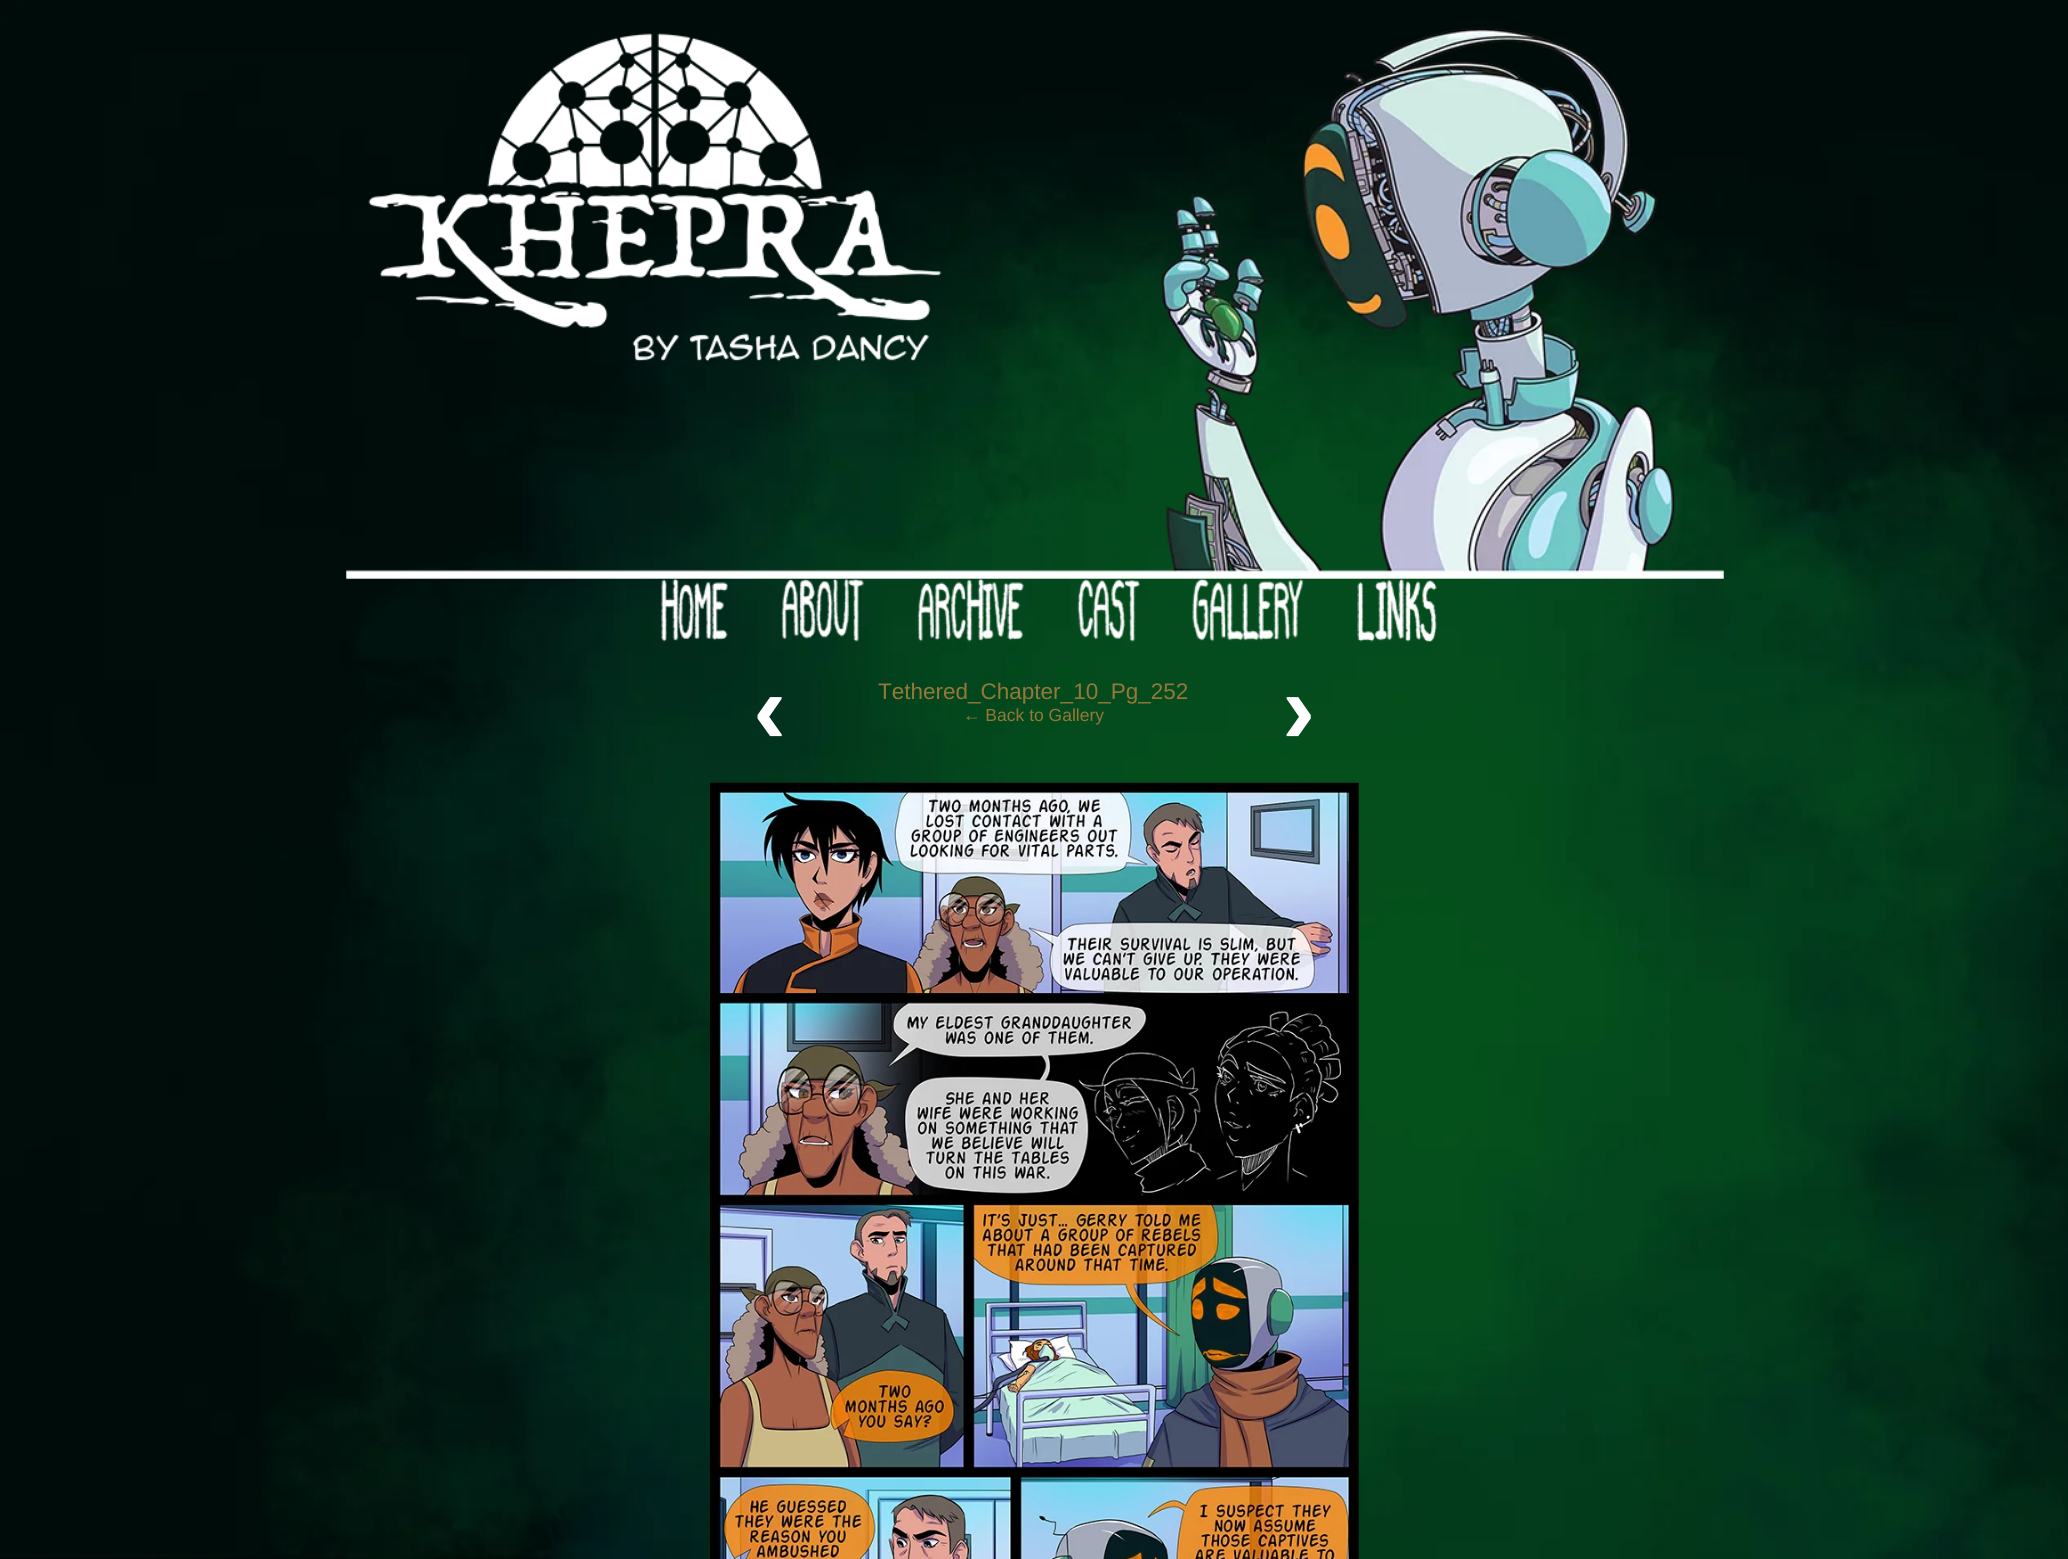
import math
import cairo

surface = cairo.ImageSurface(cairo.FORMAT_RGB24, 2068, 1559)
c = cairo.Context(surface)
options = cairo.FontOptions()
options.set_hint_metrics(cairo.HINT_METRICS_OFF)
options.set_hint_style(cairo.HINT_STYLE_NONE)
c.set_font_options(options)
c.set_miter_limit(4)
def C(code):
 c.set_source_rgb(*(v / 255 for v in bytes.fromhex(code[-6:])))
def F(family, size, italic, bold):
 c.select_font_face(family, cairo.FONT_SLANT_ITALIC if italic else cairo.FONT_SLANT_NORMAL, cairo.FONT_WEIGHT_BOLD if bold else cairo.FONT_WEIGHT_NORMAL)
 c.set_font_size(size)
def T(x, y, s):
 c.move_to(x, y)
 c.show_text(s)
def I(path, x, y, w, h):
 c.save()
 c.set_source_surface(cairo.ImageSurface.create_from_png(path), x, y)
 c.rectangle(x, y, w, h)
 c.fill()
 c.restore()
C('ffffff')
c.paint()
I('1.png',0,0,2068,1559)
I('3.png',661,578,67,64)
I('4.png',781,578,83,64)
I('5.png',917,578,107,64)
I('7.png',1192,578,112,64)
I('8.png',1357,578,80,64)
I('2.png',346,27,1378,552)
I('6.png',1077,579,63,63)
F('Liberation Sans',100,0,1)
C('ffffff')
T(753,743,'‹')
F('Liberation Sans',22.5,0,0)
C('967739')
T(878,699,'Tethered_Chapter_10_Pg_252')
F('Liberation Sans',17.5,0,0)
T(963,721,'← Back to Gallery')
F('Liberation Sans',100,0,1)
C('ffffff')
T(1282,743,'›')
I('9.png',710,782,649,777)
surface.write_to_png('o.png')
